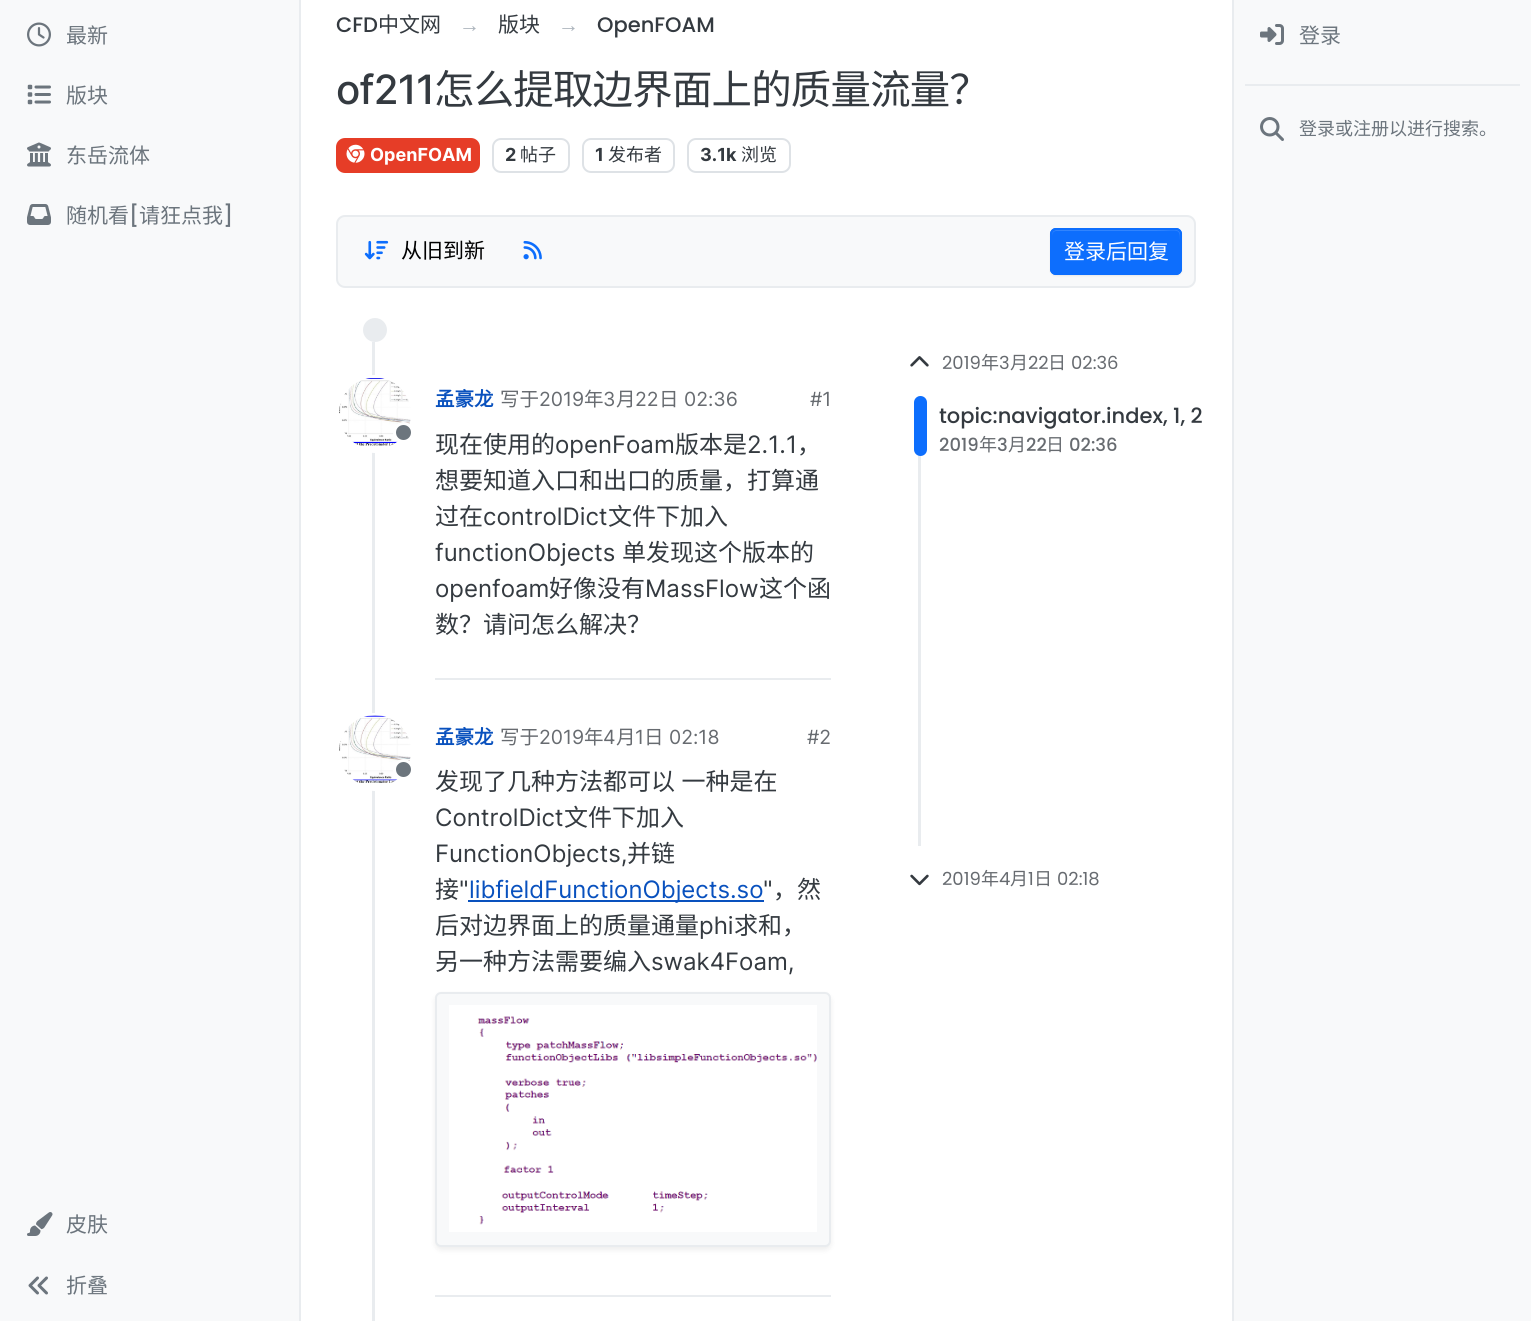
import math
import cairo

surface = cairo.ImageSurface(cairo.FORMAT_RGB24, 1531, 1321)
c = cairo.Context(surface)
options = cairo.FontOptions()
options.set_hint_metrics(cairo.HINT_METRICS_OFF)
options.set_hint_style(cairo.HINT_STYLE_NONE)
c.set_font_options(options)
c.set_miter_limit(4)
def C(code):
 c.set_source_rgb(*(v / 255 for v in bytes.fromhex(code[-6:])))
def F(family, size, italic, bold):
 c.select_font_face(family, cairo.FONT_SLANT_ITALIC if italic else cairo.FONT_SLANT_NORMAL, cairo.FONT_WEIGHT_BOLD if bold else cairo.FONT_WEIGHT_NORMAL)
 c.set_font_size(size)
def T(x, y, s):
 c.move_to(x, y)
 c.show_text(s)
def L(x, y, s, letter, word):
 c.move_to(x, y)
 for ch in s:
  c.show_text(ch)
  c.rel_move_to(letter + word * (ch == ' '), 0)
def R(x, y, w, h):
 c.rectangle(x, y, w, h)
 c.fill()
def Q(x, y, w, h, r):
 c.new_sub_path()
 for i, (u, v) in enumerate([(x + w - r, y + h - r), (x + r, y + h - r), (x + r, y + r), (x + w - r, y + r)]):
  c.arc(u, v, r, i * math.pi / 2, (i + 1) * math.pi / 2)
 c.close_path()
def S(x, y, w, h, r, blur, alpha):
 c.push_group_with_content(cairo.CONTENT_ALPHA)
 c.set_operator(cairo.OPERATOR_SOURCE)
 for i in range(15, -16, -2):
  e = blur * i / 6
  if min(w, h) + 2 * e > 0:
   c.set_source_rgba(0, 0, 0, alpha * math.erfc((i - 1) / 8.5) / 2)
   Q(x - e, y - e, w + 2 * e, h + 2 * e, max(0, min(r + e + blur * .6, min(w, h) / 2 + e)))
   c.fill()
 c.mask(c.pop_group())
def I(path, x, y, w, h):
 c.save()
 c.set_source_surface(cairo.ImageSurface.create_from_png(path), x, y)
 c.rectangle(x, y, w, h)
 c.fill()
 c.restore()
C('ffffff')
c.paint()
C('f8f9fa')
R(0,0,299,1321)
C('e9ecef')
R(299,0,2,1321)
I('1.png',27,22,24,25)
F('Noto Sans CJK SC',21,0,0)
C('6c757d')
T(66,43,'最新')
I('2.png',27,84,24,21)
T(66,103,'版块')
I('3.png',27,142,24,25)
T(66,163,'东岳流体')
I('4.png',27,204,24,21)
T(66,223,'随机看')
F('Poppins Medium',21,0,0)
T(129,223,'[')
F('Noto Sans CJK SC',21,0,0)
T(139,223,'请狂点我')
F('Poppins Medium',21,0,0)
T(223,223,']')
I('5.png',27,1212,26,24)
F('Noto Sans CJK SC',21,0,0)
T(66,1232,'皮肤')
I('6.png',28,1276,20,19)
T(66,1293,'折叠')
F('Poppins Medium',21,0,0)
C('343a40')
T(336,32,'CFD')
F('Noto Sans CJK SC',21,0,0)
T(378,32,'中文网')
F('Liberation Sans',21,0,0)
C('adb5bd')
T(459,32,'→')
F('Noto Sans CJK SC',21,0,0)
C('343a40')
T(498,32,'版块')
F('Liberation Sans',21,0,0)
C('adb5bd')
T(558,32,'→')
F('Poppins Medium',21,0,0)
C('343a40')
T(597,32,'OpenFOAM')
F('Inter Medium',40.4,0,0)
L(336,104,'of211',-.75,0)
F('Noto Sans CJK SC',40.4,0,0)
L(434,104,'怎么提取边界面上的质量流量？',-.75,0)
C('e63d27')
Q(337,139,142,33,8)
c.fill_preserve()
c.stroke()
I('7.png',346,144,19,19)
F('Inter',18,0,1)
C('ffffff')
T(370,161,'OpenFOAM')
Q(493,139,76,33,8)
C('dee2e6')
c.stroke()
C('343a40')
T(505,161,'2')
F('Noto Sans CJK SC',18,0,0)
T(520,161,'帖子')
Q(583,139,91,33,8)
C('dee2e6')
c.stroke()
F('Inter',18,0,1)
C('343a40')
T(595,161,'1')
F('Noto Sans CJK SC',18,0,0)
T(608,161,'发布者')
Q(688,139,102,33,8)
C('dee2e6')
c.stroke()
F('Inter',18,0,1)
C('343a40')
T(700,161,'3.1k')
F('Noto Sans CJK SC',18,0,0)
T(741,161,'浏览')
C('f8f9fa')
Q(337,216,858,71,8)
c.fill_preserve()
C('e9ecef')
c.stroke()
I('8.png',364,240,25,20)
F('Noto Sans CJK SC',21,0,0)
C('000000')
T(401,258,'从旧到新')
I('9.png',523,240,19,20)
C('000000')
S(1050,230,132,46,6,1,.07)
C('0d6efd')
Q(1050,228,132,47,6)
c.fill()
C('3184fd')
c.new_path()
c.move_to(1056,231)
c.line_to(1156,231)
c.curve_to(1181,231,1180,226,1180,247)
c.line_to(1180,271)
c.curve_to(1181,270,1181,269,1181,268)
c.line_to(1181,235)
c.curve_to(1181,232,1179,230,1176,230)
c.line_to(1057,230)
c.curve_to(1054,230,1052,232,1052,235)
c.line_to(1052,236)
c.curve_to(1052,233,1054,231,1056,231)
c.close_path()
c.fill()
Q(1051,229,130,45,5)
C('0d6efd')
c.stroke()
C('ffffff')
T(1064,259,'登录后回复')
C('e9ecef')
R(372,342,3,979)
c.new_path()
c.arc(375,330,12,0,2 * math.pi)
c.fill()
C('ffffff')
c.arc(375,414,37.5,0,2 * math.pi)
c.fill_preserve()
c.set_line_width(3)
c.stroke()
I('10.png',339,378,72,68)
C('6c757d')
c.arc(403.5,432.5,9,0,2 * math.pi)
c.fill_preserve()
C('ffffff')
c.stroke()
F('Noto Sans CJK SC',19.5,0,1)
C('0951be')
T(435,406,'孟豪龙')
F('Noto Sans CJK SC',19.5,0,0)
C('676b70')
T(500,406,'写于')
F('Inter',19.5,0,0)
T(539,406,'2019')
F('Noto Sans CJK SC',19.5,0,0)
T(584,406,'年')
F('Inter',19.5,0,0)
T(603,406,'3')
F('Noto Sans CJK SC',19.5,0,0)
T(616,406,'月')
F('Inter',19.5,0,0)
T(635,406,'22')
F('Noto Sans CJK SC',19.5,0,0)
T(659,406,'日')
F('Inter',19.5,0,0)
T(684,406,'02:36')
T(810,406,'#1')
F('Noto Sans CJK SC',24,0,0)
C('343a40')
T(435,453,'现在使用的')
F('Inter',24,0,0)
T(555,453,'openFoam')
F('Noto Sans CJK SC',24,0,0)
T(675,453,'版本是')
F('Inter',24,0,0)
T(747,453,'2.1.1')
F('Noto Sans CJK SC',24,0,0)
T(797,453,'，')
T(435,489,'想要知道入口和出口的质量，打算通')
T(435,525,'过在')
F('Inter',24,0,0)
T(483,525,'controlDict')
F('Noto Sans CJK SC',24,0,0)
T(608,525,'文件下加入')
F('Inter',24,0,0)
T(435,561,'functionObjects')
F('Noto Sans CJK SC',24,0,0)
T(622,561,'单发现这个版本的')
F('Inter',24,0,0)
T(435,597,'openfoam')
F('Noto Sans CJK SC',24,0,0)
T(549,597,'好像没有')
F('Inter',24,0,0)
T(645,597,'MassFlow')
F('Noto Sans CJK SC',24,0,0)
T(759,597,'这个函')
T(435,633,'数？请问怎么解决？')
C('e9ecef')
R(435,678,396,2)
C('ffffff')
c.new_path()
c.arc(375,752,37.5,0,2 * math.pi)
c.fill_preserve()
c.stroke()
I('11.png',339,715,72,68)
C('6c757d')
c.arc(403.5,769.5,9,0,2 * math.pi)
c.fill_preserve()
C('ffffff')
c.stroke()
F('Noto Sans CJK SC',19.5,0,1)
C('0951be')
T(435,744,'孟豪龙')
F('Noto Sans CJK SC',19.5,0,0)
C('676b70')
T(500,744,'写于')
F('Inter',19.5,0,0)
T(539,744,'2019')
F('Noto Sans CJK SC',19.5,0,0)
T(584,744,'年')
F('Inter',19.5,0,0)
T(603,744,'4')
F('Noto Sans CJK SC',19.5,0,0)
T(616,744,'月')
F('Inter',19.5,0,0)
T(635,744,'1')
F('Noto Sans CJK SC',19.5,0,0)
T(644,744,'日')
F('Inter',19.5,0,0)
T(669,744,'02:18')
T(807,744,'#2')
F('Noto Sans CJK SC',24,0,0)
C('343a40')
L(435,790,'发现了几种方法都可以 一种是在',0,1)
F('Inter',24,0,0)
T(435,826,'ControlDict')
F('Noto Sans CJK SC',24,0,0)
T(564,826,'文件下加入')
F('Inter',24,0,0)
T(435,862,'FunctionObjects,')
F('Noto Sans CJK SC',24,0,0)
T(627,862,'并链')
T(435,898,'接')
F('Inter',24,0,0)
T(459,898,'"')
C('0951be')
R(468,900,296,2)
T(469,898,'libfieldFunctionObjects.so')
C('343a40')
T(763,898,'"')
F('Noto Sans CJK SC',24,0,0)
T(773,898,'，然')
T(435,934,'后对边界面上的质量通量')
F('Inter',24,0,0)
T(699,934,'phi')
F('Noto Sans CJK SC',24,0,0)
T(734,934,'求和，')
T(435,970,'另一种方法需要编入')
F('Inter',24,0,0)
T(651,970,'swak4Foam,')
C('000000')
S(435,995,396,255,6,3,.07)
C('f8f9fa')
Q(436,993,394,253,5)
c.fill_preserve()
C('e9ecef')
c.set_line_width(2)
c.stroke()
I('12.png',449,1005,368,227)
R(435,1295,396,2)
I('13.png',910,356,19,11)
F('Poppins',18,0,0)
C('676b70')
T(942,369,'2019')
F('Noto Sans CJK SC',18,0,0)
T(981,369,'年')
F('Poppins',18,0,0)
T(999,369,'3')
F('Noto Sans CJK SC',18,0,0)
T(1010,369,'月')
F('Poppins',18,0,0)
T(1028,369,'22')
F('Noto Sans CJK SC',18,0,0)
T(1048,369,'日')
F('Poppins',18,0,0)
T(1071,369,'02:36')
C('e9ecef')
R(918,396,3,450)
C('0d6efd')
Q(914,396,13,60,6.5)
c.fill()
F('Poppins Medium',21,0,0)
C('343a40')
T(939,423,'topic:navigator.index, 1, 2')
F('Poppins Medium',18,0,0)
C('676b70')
T(939,451,'2019')
F('Noto Sans CJK SC',18,0,0)
T(979,451,'年')
F('Poppins Medium',18,0,0)
T(997,451,'3')
F('Noto Sans CJK SC',18,0,0)
T(1008,451,'月')
F('Poppins Medium',18,0,0)
T(1026,451,'22')
F('Noto Sans CJK SC',18,0,0)
T(1046,451,'日')
F('Poppins Medium',18,0,0)
T(1069,451,'02:36')
I('14.png',910,874,19,12)
F('Poppins',18,0,0)
T(942,885,'2019')
F('Noto Sans CJK SC',18,0,0)
T(981,885,'年')
F('Poppins',18,0,0)
T(999,885,'4')
F('Noto Sans CJK SC',18,0,0)
T(1010,885,'月')
F('Poppins',18,0,0)
T(1028,885,'1')
F('Noto Sans CJK SC',18,0,0)
T(1034,885,'日')
F('Poppins',18,0,0)
T(1057,885,'02:18')
C('f8f9fa')
R(1234,0,297,1321)
C('e9ecef')
R(1232,0,2,1321)
I('15.png',1260,24,24,21)
F('Noto Sans CJK SC',21,0,0)
C('6c757d')
T(1299,43,'登录')
C('e9ecef')
R(1245,84,275,2)
I('16.png',1260,117,24,24)
F('Noto Sans CJK SC',18,0,0)
C('6c757d')
T(1299,135,'登录或注册以进行搜索。')
surface.write_to_png('o.png')
